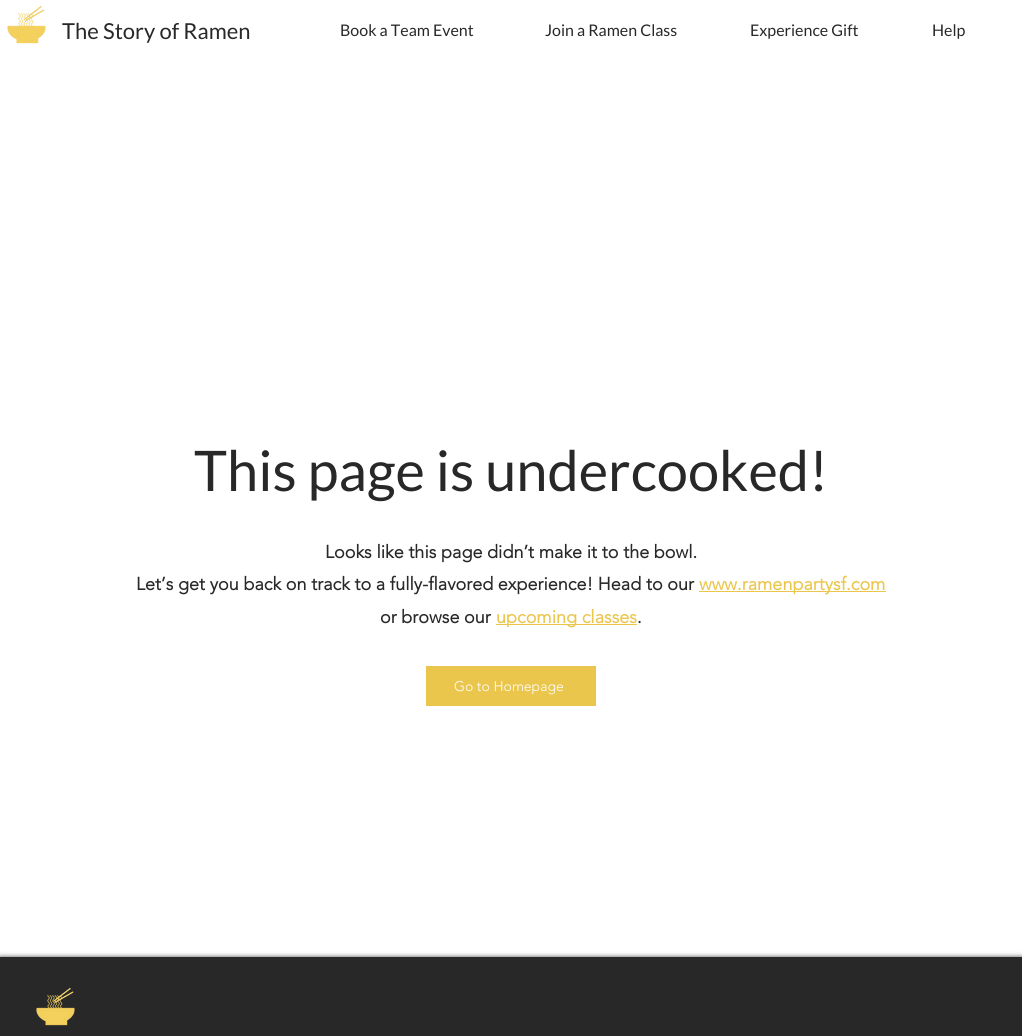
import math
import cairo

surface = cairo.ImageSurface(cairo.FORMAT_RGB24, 1022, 1036)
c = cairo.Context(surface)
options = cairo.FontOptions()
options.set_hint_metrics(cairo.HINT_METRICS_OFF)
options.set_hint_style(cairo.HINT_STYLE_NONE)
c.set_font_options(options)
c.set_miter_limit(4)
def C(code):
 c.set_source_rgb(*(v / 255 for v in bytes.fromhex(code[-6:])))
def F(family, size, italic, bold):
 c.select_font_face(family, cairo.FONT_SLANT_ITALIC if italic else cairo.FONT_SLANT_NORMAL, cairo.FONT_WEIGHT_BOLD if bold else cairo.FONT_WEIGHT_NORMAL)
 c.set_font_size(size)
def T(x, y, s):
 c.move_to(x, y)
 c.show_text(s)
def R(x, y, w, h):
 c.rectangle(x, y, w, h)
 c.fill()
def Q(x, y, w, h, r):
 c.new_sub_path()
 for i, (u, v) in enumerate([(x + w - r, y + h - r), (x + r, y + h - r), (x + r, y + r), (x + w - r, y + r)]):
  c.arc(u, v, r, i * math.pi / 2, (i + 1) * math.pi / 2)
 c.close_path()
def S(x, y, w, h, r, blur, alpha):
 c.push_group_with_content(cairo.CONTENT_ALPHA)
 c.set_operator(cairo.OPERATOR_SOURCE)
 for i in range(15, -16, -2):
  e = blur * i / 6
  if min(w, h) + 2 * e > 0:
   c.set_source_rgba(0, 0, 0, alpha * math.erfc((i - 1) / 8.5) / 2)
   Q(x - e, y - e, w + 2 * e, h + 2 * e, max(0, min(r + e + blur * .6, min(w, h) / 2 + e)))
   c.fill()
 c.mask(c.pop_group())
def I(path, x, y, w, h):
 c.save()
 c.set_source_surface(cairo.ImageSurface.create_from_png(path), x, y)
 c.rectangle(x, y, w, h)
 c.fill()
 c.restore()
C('ffffff')
c.paint()
I('1.png',7,5,39,39)
F('Lato',22,0,0)
C('282828')
T(62,39,'The Story of Ramen')
F('Lato',16,0,0)
T(340,36,'Book a Team Event')
T(545,36,'Join a Ramen Class')
T(750,36,'Experience Gift')
T(932,36,'Help')
F('Lato',56,0,0)
T(194,491,'This page is undercooked!')
F('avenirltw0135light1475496',18,0,1)
T(325,558,'Looks like this page didn’t make it to the bowl.')
T(136,590,'Let’s get you back on track to a fully-flavored experience! Head to our')
C('ebc64d')
R(699,591,187,1)
T(699,590,'www.ramenpartysf.com')
C('282828')
T(380,623,'or browse our')
C('ebc64d')
R(496,624,141,1)
T(496,623,'upcoming classes')
C('282828')
T(637,623,'.')
C('ebc64d')
R(426,666,170,40)
F('avenirltw0135light1475496 Light',14,0,0)
C('ffffff')
T(454,691,'Go to Homepage')
C('000000')
S(0,957,1022,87,0,2.5,.7)
C('282828')
R(0,957,1022,79)
I('2.png',36,987,39,39)
surface.write_to_png('o.png')
